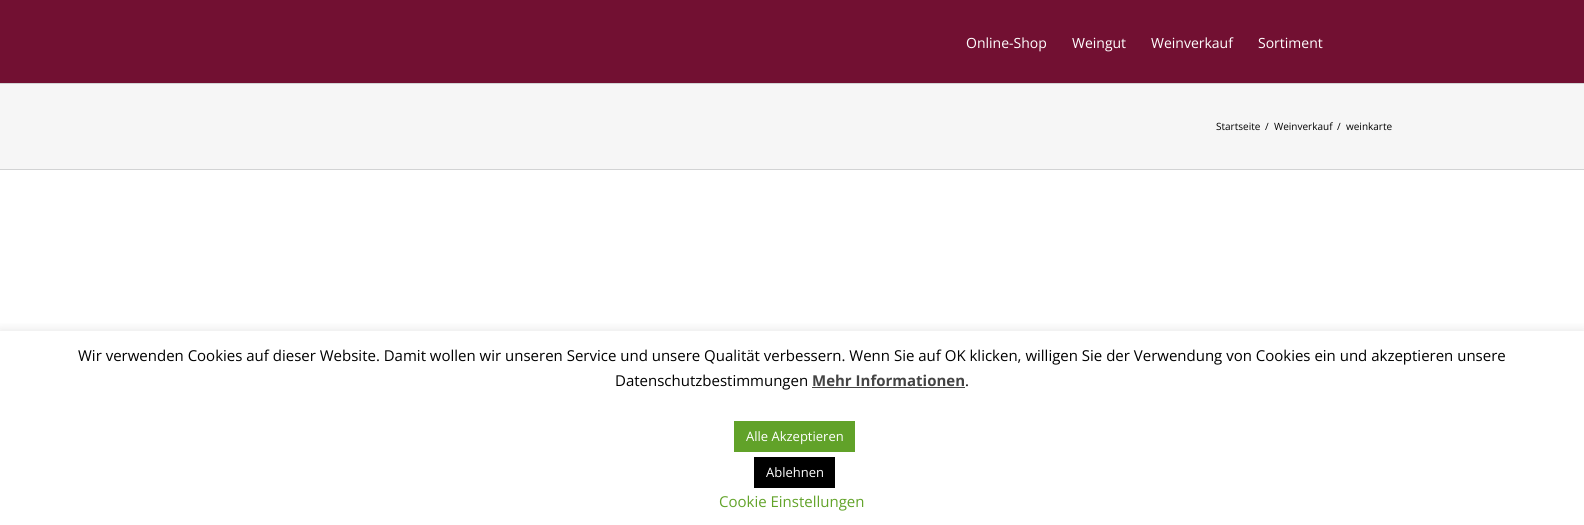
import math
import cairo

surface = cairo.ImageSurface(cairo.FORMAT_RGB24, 1584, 525)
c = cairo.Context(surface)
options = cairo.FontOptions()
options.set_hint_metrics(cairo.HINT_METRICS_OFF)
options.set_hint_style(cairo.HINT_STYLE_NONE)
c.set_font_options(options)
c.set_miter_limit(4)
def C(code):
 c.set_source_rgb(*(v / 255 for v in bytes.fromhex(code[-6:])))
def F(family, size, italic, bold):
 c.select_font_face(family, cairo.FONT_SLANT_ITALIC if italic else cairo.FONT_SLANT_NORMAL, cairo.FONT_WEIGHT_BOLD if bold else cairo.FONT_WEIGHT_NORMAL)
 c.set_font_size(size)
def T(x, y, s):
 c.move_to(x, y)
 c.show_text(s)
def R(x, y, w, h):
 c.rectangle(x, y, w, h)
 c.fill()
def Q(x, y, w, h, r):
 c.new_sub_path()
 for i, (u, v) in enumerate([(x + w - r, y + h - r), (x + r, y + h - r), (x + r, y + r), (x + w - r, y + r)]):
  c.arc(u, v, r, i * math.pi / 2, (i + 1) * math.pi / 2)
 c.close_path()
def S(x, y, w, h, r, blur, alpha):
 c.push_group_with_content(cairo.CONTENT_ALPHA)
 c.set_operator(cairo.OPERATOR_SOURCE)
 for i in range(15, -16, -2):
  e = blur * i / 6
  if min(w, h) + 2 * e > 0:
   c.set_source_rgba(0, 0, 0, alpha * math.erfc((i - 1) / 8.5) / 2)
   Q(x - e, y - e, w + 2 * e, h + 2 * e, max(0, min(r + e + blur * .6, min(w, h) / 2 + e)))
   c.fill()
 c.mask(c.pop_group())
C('ffffff')
c.paint()
C('721032')
R(0,0,1584,83)
F('Open Sans',14,0,0)
C('ffffff')
T(966,48,'Online-Shop')
T(1072,48,'Weingut')
T(1151,48,'Weinverkauf')
T(1258,48,'Sortiment')
C('f6f6f6')
R(0,84,1584,85)
C('d2d3d4')
R(0,83,1584,1)
R(0,169,1584,1)
F('Open Sans',10,0,0)
C('000000')
T(1216,130,'Startseite')
T(1265,130,'/')
T(1274,130,'Weinverkauf')
T(1337,130,'/')
T(1346,130,'weinkarte')
c.save()
c.rectangle(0,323,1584,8)
c.clip()
C('acabab')
S(0,330,1584,194,0,5,.3)
c.restore()
F('Open Sans',15,0,0)
T(78,361,'Wir verwenden Cookies auf dieser Website. Damit wollen wir unseren Service und unsere Qualität verbessern. Wenn Sie auf OK klicken, willigen Sie der Verwendung von Cookies ein und akzeptieren unsere')
T(615,386,'Datenschutzbestimmungen')
F('Open Sans',15,0,1)
C('444444')
T(812,386,'Mehr Informationen')
R(812,387,153,1)
F('Open Sans',15,0,0)
C('000000')
T(965,386,'.')
C('61a229')
R(734,421,121,31)
F('Open Sans',13,0,0)
C('ffffff')
T(746,441,'Alle Akzeptieren')
C('000000')
R(754,457,81,31)
C('ffffff')
T(766,477,'Ablehnen')
F('Open Sans',15,0,0)
C('62a329')
T(719,507,'Cookie Einstellungen')
surface.write_to_png('o.png')
